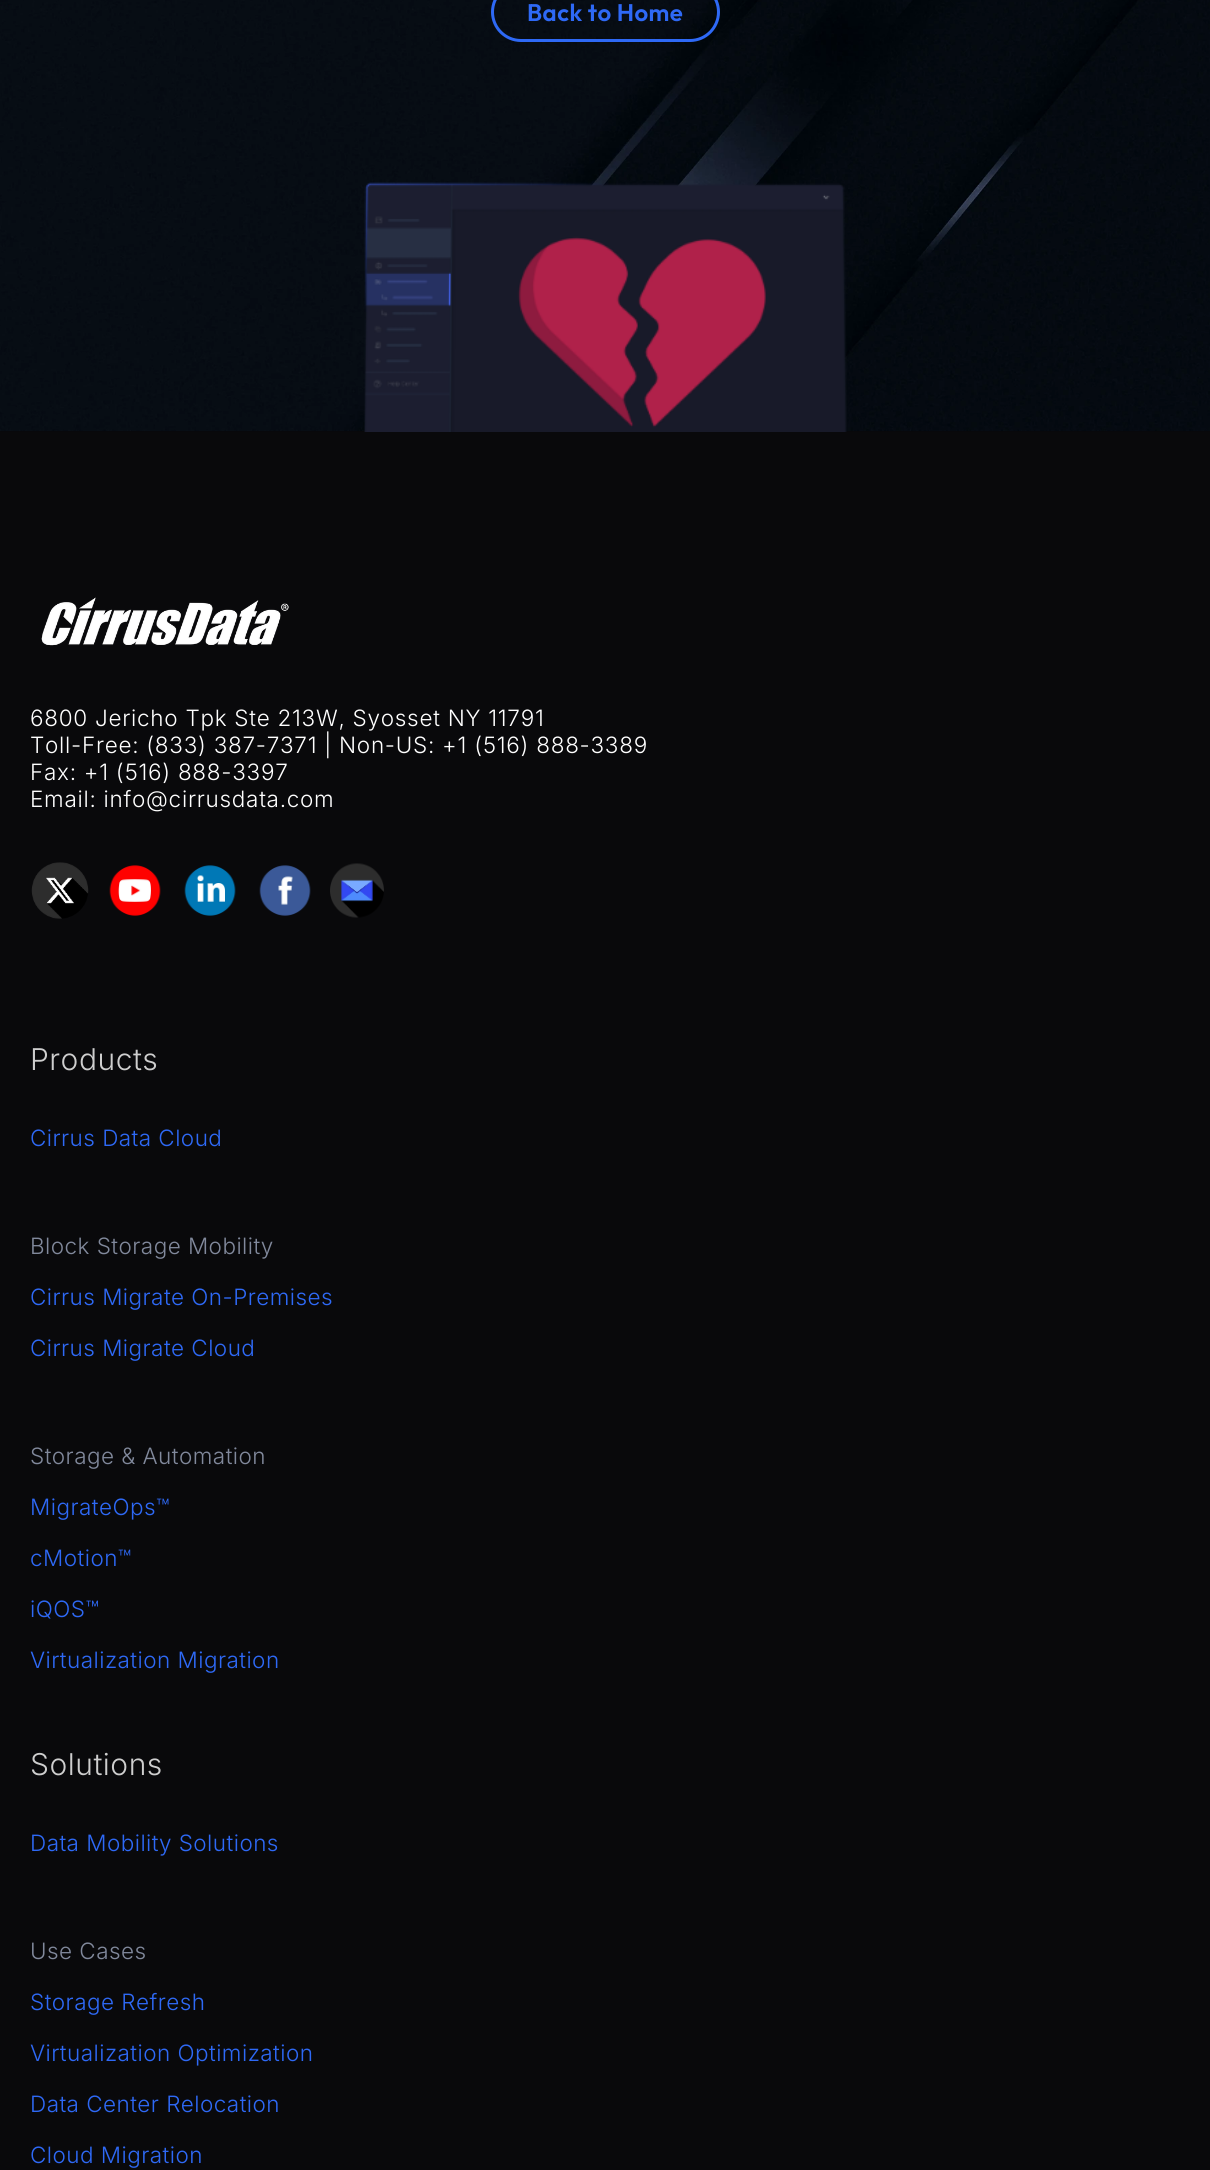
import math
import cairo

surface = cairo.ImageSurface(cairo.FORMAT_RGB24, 1210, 2170)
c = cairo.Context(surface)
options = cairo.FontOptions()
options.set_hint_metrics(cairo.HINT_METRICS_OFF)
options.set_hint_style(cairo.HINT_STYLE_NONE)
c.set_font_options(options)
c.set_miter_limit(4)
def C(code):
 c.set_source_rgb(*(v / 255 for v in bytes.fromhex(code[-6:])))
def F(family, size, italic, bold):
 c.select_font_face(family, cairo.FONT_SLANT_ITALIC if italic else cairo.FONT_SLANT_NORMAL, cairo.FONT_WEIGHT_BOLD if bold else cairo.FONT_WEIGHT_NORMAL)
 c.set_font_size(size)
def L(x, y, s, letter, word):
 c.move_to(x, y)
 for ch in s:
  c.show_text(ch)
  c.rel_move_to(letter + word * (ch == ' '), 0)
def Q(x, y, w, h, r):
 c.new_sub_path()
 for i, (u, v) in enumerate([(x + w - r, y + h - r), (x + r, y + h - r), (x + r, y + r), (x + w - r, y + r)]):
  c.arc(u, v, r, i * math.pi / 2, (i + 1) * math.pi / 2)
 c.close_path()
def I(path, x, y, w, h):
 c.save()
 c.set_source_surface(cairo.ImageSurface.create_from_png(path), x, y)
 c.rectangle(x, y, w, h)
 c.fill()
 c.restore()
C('09090b')
c.paint()
I('1.png',0,0,1210,432)
Q(492.5,-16.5,226,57,28.5)
C('2e69f6')
c.set_line_width(3)
c.stroke()
F('Outfit SemiBold',24,0,0)
L(527,21,'Back to Home',.45,0)
I('2.png',364,182,483,250)
I('3.png',41,597,248,49)
F('Inter Light',22.5,0,0)
C('ffffff')
L(30,726,'6800 Jericho Tpk Ste 213W, Syosset NY 11791',.72,0)
L(30,753,'Toll-Free: (833) 387-7371 | Non-US: +1 (516) 888-3389',.72,0)
L(30,780,'Fax: +1 (516) 888-3397',.72,0)
L(30,807,'Email: info@cirrusdata.com',.72,0)
I('4.png',31,862,58,57)
I('5.png',109,865,52,51)
I('6.png',184,865,52,51)
I('7.png',259,865,52,51)
I('8.png',330,863,54,55)
F('Inter Light',30,0,0)
C('cecece')
L(30,1070,'Products',.5,0)
F('Inter Light',22.5,0,0)
C('2e69f6')
L(30,1146,'Cirrus Data Cloud',.45,0)
C('81899c')
L(30,1254,'Block Storage Mobility',.45,0)
C('2e69f6')
L(30,1305,'Cirrus Migrate On-Premises',.45,0)
L(30,1356,'Cirrus Migrate Cloud',.45,0)
C('81899c')
L(30,1464,'Storage & Automation',.45,0)
C('2e69f6')
L(30,1515,'MigrateOps™',.45,0)
L(30,1566,'cMotion™',.45,0)
L(30,1617,'iQOS™',.45,0)
L(30,1668,'Virtualization Migration',.45,0)
F('Inter Light',30,0,0)
C('cecece')
L(30,1775,'Solutions',.5,0)
F('Inter Light',22.5,0,0)
C('2e69f6')
L(30,1851,'Data Mobility Solutions',.45,0)
C('81899c')
L(30,1959,'Use Cases',.45,0)
C('2e69f6')
L(30,2010,'Storage Refresh',.45,0)
L(30,2061,'Virtualization Optimization',.45,0)
L(30,2112,'Data Center Relocation',.45,0)
L(30,2163,'Cloud Migration',.45,0)
surface.write_to_png('o.png')
